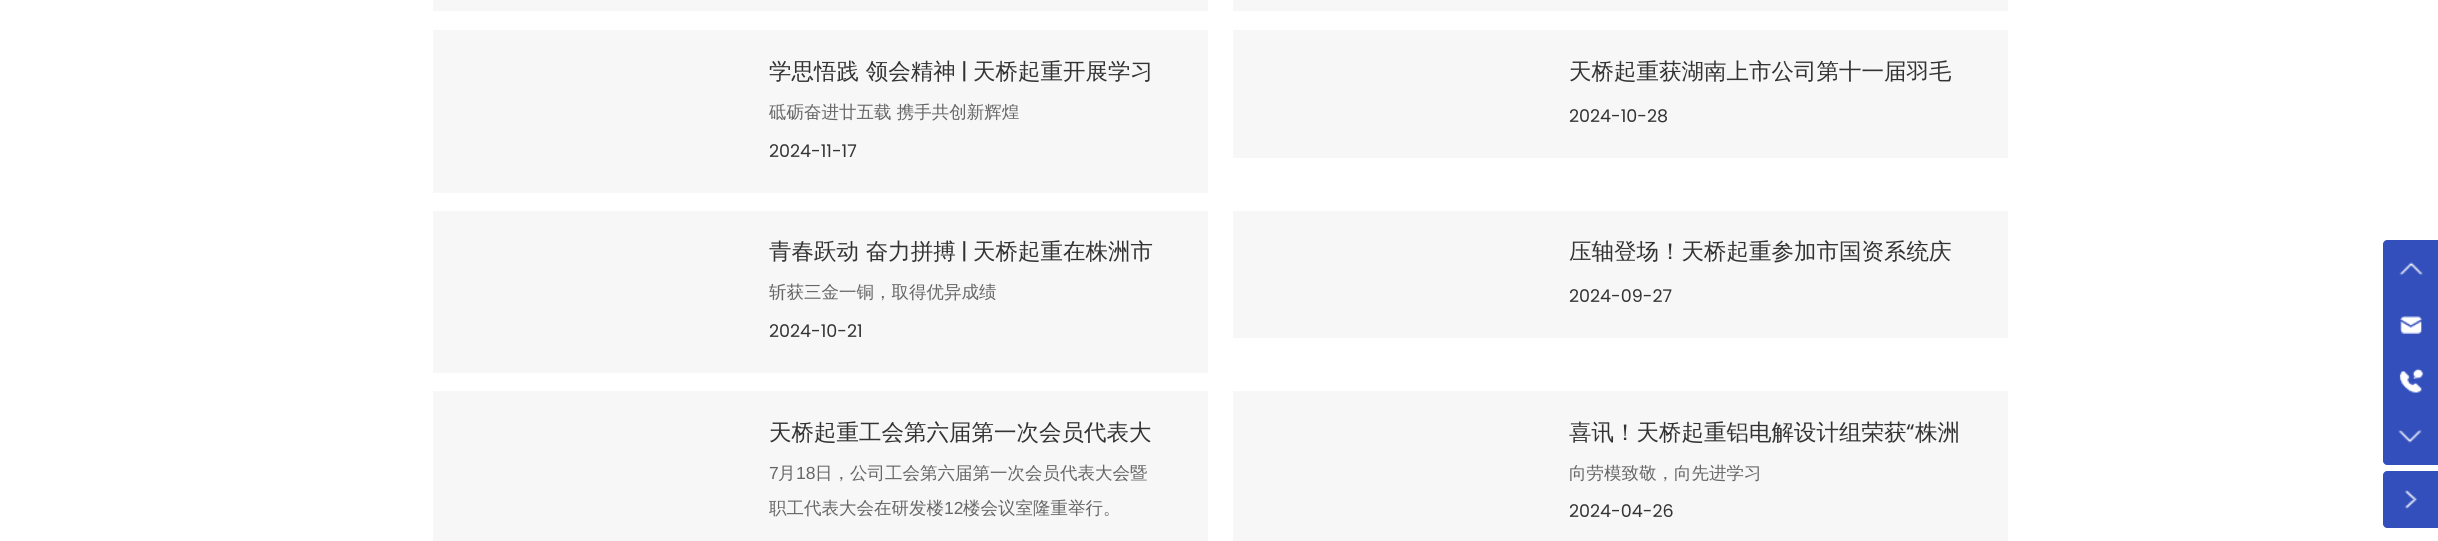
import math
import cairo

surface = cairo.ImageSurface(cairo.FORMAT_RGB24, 2438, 541)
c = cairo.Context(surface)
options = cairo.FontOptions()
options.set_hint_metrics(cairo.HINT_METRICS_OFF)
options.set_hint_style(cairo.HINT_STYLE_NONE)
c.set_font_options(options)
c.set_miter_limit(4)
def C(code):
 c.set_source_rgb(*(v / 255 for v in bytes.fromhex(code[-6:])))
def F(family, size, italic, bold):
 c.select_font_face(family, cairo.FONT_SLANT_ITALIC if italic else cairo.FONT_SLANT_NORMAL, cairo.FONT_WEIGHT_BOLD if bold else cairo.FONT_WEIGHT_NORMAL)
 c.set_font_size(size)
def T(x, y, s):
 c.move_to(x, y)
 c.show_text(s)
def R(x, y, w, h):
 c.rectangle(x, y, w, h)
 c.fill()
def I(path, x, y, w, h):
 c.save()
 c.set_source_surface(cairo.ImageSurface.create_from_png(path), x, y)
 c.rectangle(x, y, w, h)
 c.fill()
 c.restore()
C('ffffff')
c.paint()
C('f7f7f7')
R(433,0,775,11)
R(1233,0,775,11)
R(433,30,775,163)
F('WenQuanYi Zen Hei Medium',22.5,0,0)
C('333333')
T(769,79,'学思悟践 领会精神')
F('Poppins',22.5,0,0)
T(961,79,'|')
F('WenQuanYi Zen Hei Medium',22.5,0,0)
T(973,79,'天桥起重开展学习')
F('WenQuanYi Zen Hei Medium',17.5,0,0)
C('666666')
T(769,118,'砥砺奋进廿五载 携手共创新辉煌')
F('Poppins',17.5,0,0)
C('333333')
T(769,157,'2024-11-17')
C('f7f7f7')
R(1233,30,775,128)
F('WenQuanYi Zen Hei Medium',22.5,0,0)
C('333333')
T(1569,79,'天桥起重获湖南上市公司第十一届羽毛')
F('Poppins',17.5,0,0)
T(1569,122,'2024-10-28')
C('f7f7f7')
R(433,211,775,162)
F('WenQuanYi Zen Hei Medium',22.5,0,0)
C('333333')
T(769,259,'青春跃动 奋力拼搏')
F('Poppins',22.5,0,0)
T(961,259,'|')
F('WenQuanYi Zen Hei Medium',22.5,0,0)
T(973,259,'天桥起重在株洲市')
F('WenQuanYi Zen Hei Medium',17.5,0,0)
C('666666')
T(769,298,'斩获三金一铜，取得优异成绩')
F('Poppins',17.5,0,0)
C('333333')
T(769,337,'2024-10-21')
C('f7f7f7')
R(1233,211,775,127)
F('WenQuanYi Zen Hei Medium',22.5,0,0)
C('333333')
T(1569,259,'压轴登场！天桥起重参加市国资系统庆')
F('Poppins',17.5,0,0)
T(1569,302,'2024-09-27')
C('f7f7f7')
R(433,391,775,150)
F('WenQuanYi Zen Hei Medium',22.5,0,0)
C('333333')
T(769,440,'天桥起重工会第六届第一次会员代表大')
F('Liberation Sans',17.5,0,0)
C('666666')
T(769,479,'7')
F('WenQuanYi Zen Hei Medium',17.5,0,0)
T(778,479,'月')
F('Liberation Sans',17.5,0,0)
T(796,479,'18')
F('WenQuanYi Zen Hei Medium',17.5,0,0)
T(815,479,'日，公司工会第六届第一次会员代表大会暨')
T(769,514,'职工代表大会在研发楼')
F('Liberation Sans',17.5,0,0)
T(944,514,'12')
F('WenQuanYi Zen Hei Medium',17.5,0,0)
T(963,514,'楼会议室隆重举行。')
C('f7f7f7')
R(1233,391,775,150)
F('WenQuanYi Zen Hei Medium',22.5,0,0)
C('333333')
T(1569,440,'喜讯！天桥起重铝电解设计组荣获')
F('Poppins',22.5,0,0)
T(1906,440,'“')
F('WenQuanYi Zen Hei Medium',22.5,0,0)
T(1915,440,'株洲')
F('WenQuanYi Zen Hei Medium',17.5,0,0)
C('666666')
T(1569,479,'向劳模致敬，向先进学习')
F('Poppins',17.5,0,0)
C('333333')
T(1569,517,'2024-04-26')
C('324fbb')
c.new_path()
c.move_to(2387,240)
c.line_to(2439,240)
c.line_to(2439,465)
c.line_to(2387,465)
c.curve_to(2385,465,2383,463,2383,461)
c.line_to(2383,244)
c.curve_to(2383,242,2385,240,2387,240)
c.close_path()
c.fill()
I('1.png',2399,262,24,14)
I('2.png',2400,316,23,18)
I('3.png',2399,368,25,25)
I('4.png',2398,429,24,14)
c.new_path()
c.move_to(2387,471)
c.line_to(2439,471)
c.line_to(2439,528)
c.line_to(2387,528)
c.curve_to(2385,528,2383,526,2383,524)
c.line_to(2383,475)
c.curve_to(2383,473,2385,471,2387,471)
c.close_path()
c.fill()
I('5.png',2404,490,13,19)
surface.write_to_png('o.png')
